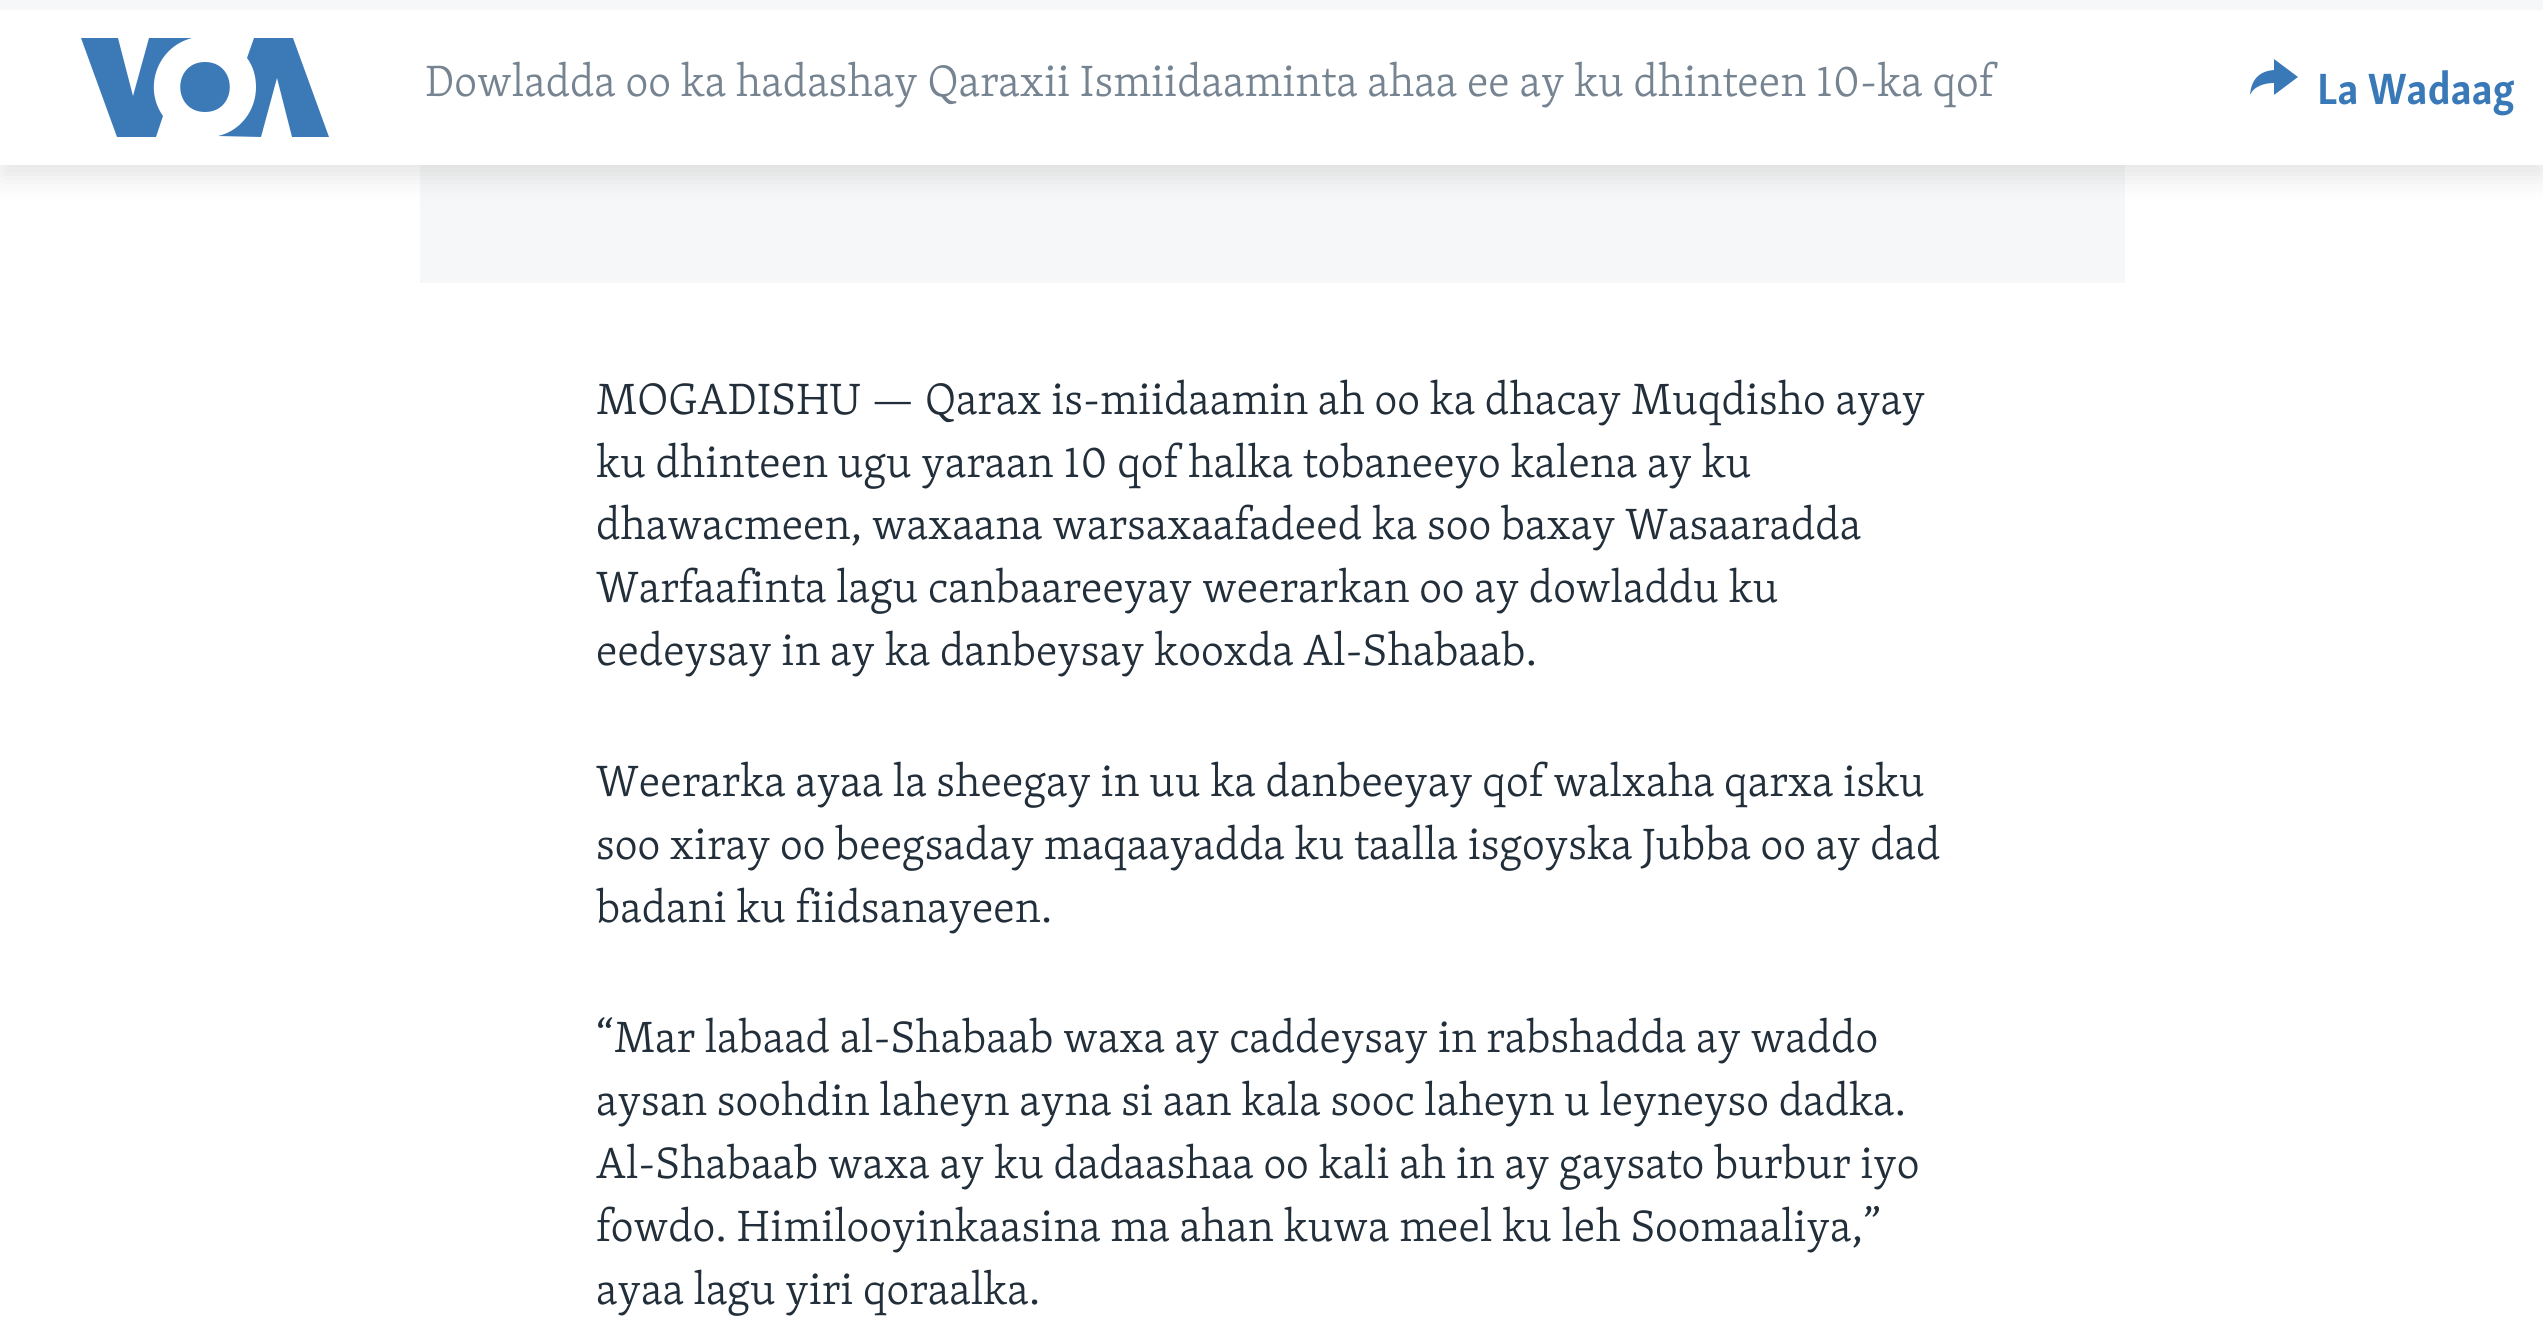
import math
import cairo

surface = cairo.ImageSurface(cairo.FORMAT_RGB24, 2543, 1329)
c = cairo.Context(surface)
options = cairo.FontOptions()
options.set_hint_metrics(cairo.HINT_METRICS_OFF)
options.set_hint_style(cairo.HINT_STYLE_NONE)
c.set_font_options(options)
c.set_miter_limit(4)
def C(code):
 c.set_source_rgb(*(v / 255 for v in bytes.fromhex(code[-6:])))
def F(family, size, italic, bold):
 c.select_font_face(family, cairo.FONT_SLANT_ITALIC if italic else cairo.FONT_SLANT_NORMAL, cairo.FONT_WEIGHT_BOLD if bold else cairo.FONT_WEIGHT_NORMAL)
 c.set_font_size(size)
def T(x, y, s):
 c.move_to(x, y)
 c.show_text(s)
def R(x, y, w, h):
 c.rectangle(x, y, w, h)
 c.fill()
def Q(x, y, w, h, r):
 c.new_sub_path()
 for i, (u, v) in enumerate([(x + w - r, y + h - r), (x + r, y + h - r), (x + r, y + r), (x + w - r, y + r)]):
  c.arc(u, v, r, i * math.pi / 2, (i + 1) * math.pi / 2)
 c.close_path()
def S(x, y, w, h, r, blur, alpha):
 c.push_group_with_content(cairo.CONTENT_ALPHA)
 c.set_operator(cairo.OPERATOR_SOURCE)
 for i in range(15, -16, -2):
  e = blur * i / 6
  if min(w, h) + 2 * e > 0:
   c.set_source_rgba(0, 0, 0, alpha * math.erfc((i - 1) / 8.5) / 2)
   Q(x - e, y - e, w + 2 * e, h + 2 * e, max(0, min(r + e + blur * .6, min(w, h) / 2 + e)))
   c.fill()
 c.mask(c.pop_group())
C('ffffff')
c.paint()
C('f6f7f8')
R(420,165,1705,118)
C('000000')
S(0,13,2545,165,0,12.5,.1)
C('ffffff')
R(0,10,2543,155)
C('f6f7f8')
R(0,0,2543,10)
C('3b79b7')
c.new_path()
c.move_to(163,116)
c.line_to(156,137)
c.line_to(117,137)
c.line_to(81,38)
c.line_to(118,38)
c.line_to(133,96)
c.line_to(149,38)
c.line_to(192,38)
c.curve_to(157,47,143,88,163,116)
c.close_path()
c.move_to(205,62)
c.curve_to(172,62,172,112,205,112)
c.curve_to(238,112,238,62,205,62)
c.close_path()
c.move_to(256,87)
c.curve_to(256,111,240,131,218,136)
c.line_to(261,137)
c.line_to(277,78)
c.line_to(292,137)
c.line_to(329,137)
c.line_to(293,38)
c.line_to(254,38)
c.line_to(247,58)
c.curve_to(253,66,256,76,256,87)
c.close_path()
c.fill()
F('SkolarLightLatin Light',45,0,0)
C('768492')
T(425,96,'Dowladda oo ka hadashay Qaraxii Ismiidaaminta ahaa ee ay ku dhinteen 10-ka qof')
C('3a79b7')
c.new_path()
c.move_to(2250,95)
c.curve_to(2251,80,2259,71,2274,70)
c.line_to(2274,59)
c.line_to(2298,77)
c.line_to(2274,95)
c.line_to(2274,83)
c.curve_to(2265,83,2254,86,2250,95)
c.close_path()
c.fill()
F('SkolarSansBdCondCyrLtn',45,0,1)
T(2317,104,'La Wadaag')
F('SkolarLightLatin Light',45,0,0)
C('222f3a')
T(596,414,'MOGADISHU — Qarax is-miidaamin ah oo ka dhacay Muqdisho ayay')
T(596,477,'ku dhinteen ugu yaraan 10 qof halka tobaneeyo kalena ay ku')
T(596,539,'dhawacmeen, waxaana warsaxaafadeed ka soo baxay Wasaaradda')
T(596,602,'Warfaafinta lagu canbaareeyay weerarkan oo ay dowladdu ku')
T(596,665,'eedeysay in ay ka danbeysay kooxda Al-Shabaab.')
T(596,796,'Weerarka ayaa la sheegay in uu ka danbeeyay qof walxaha qarxa isku')
T(596,859,'soo xiray oo beegsaday maqaayadda ku taalla isgoyska Jubba oo ay dad')
T(596,922,'badani ku fiidsanayeen.')
T(596,1052,'“Mar labaad al-Shabaab waxa ay caddeysay in rabshadda ay waddo')
T(596,1115,'aysan soohdin laheyn ayna si aan kala sooc laheyn u leyneyso dadka.')
T(596,1178,'Al-Shabaab waxa ay ku dadaashaa oo kali ah in ay gaysato burbur iyo')
T(596,1241,'fowdo. Himilooyinkaasina ma ahan kuwa meel ku leh Soomaaliya,”')
T(596,1304,'ayaa lagu yiri qoraalka.')
surface.write_to_png('o.png')
